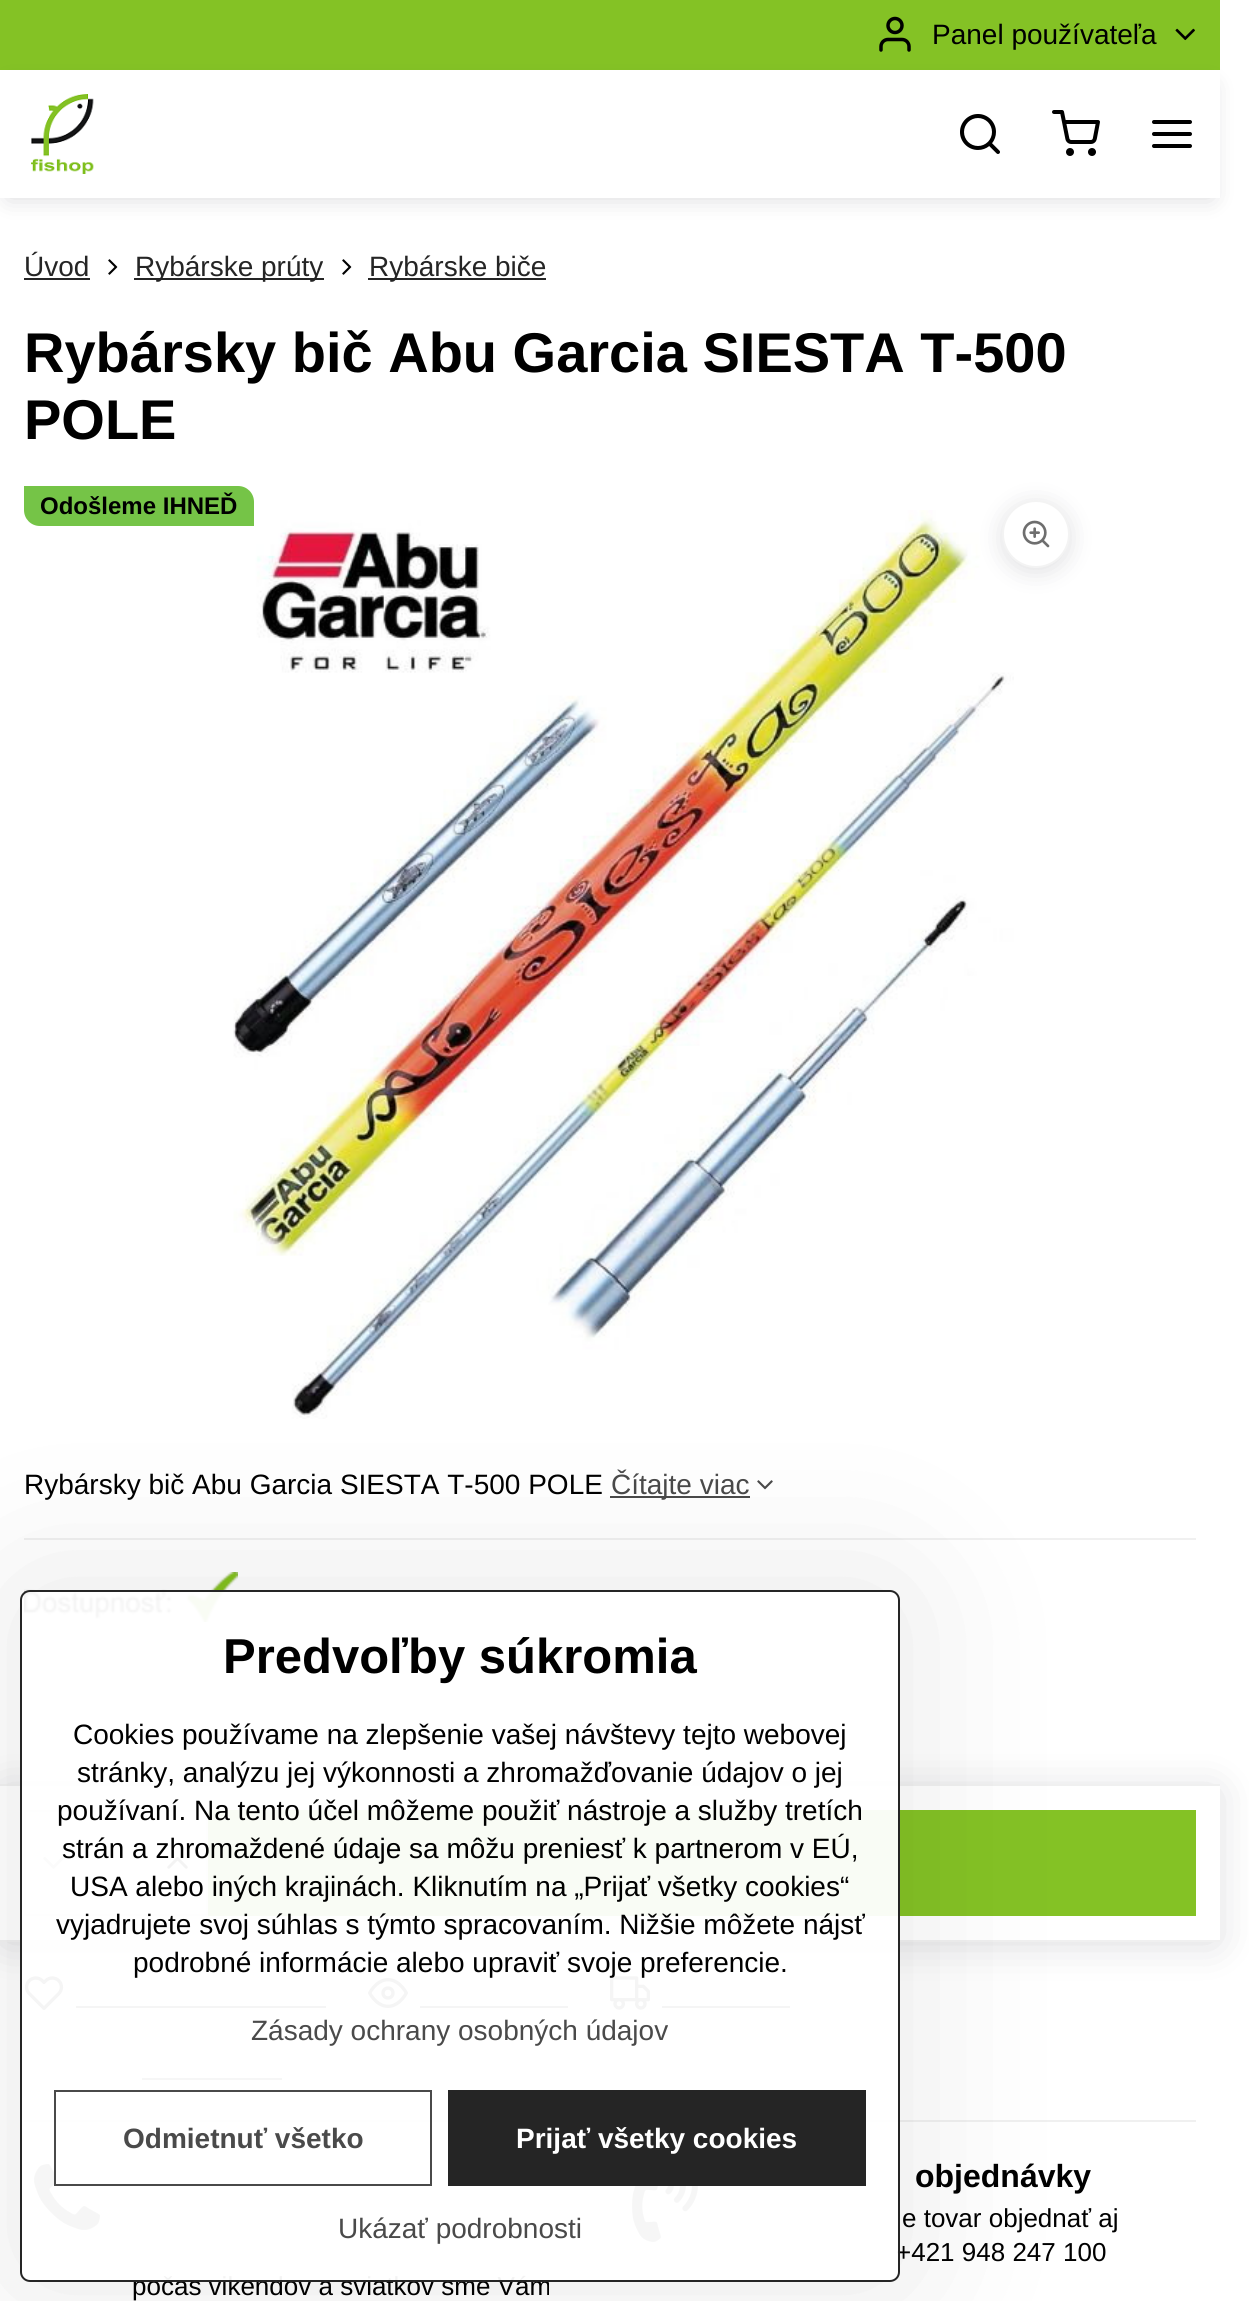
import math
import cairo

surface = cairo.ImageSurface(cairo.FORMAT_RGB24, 1249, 2301)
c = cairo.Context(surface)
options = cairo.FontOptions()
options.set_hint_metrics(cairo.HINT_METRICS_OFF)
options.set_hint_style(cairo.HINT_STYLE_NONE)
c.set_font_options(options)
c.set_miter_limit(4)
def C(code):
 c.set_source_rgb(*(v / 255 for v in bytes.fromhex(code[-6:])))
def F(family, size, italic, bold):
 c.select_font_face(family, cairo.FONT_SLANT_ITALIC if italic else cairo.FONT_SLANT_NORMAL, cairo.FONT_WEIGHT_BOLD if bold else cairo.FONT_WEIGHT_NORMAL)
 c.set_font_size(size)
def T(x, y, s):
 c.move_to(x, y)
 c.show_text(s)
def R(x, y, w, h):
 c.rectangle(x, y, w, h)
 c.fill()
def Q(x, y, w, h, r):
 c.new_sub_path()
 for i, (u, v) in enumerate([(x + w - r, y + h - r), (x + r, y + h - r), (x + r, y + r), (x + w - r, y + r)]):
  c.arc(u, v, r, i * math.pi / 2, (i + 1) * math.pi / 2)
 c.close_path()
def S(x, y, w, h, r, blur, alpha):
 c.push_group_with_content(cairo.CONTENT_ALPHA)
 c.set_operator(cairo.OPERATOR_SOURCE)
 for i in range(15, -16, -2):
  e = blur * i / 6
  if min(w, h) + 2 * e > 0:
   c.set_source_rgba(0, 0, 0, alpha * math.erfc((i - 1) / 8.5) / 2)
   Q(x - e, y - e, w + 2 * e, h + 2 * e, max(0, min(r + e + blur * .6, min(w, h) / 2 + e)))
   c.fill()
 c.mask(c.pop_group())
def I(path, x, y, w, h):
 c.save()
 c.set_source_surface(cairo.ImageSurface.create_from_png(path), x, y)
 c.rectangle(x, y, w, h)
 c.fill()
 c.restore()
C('ffffff')
c.paint()
C('84c225')
R(0,0,1220,70)
I('1.png',879,16,32,36)
F('Liberation Sans',28,0,0)
C('000000')
T(932,44,'Panel používateľa')
I('2.png',1175,28,20,13)
c.save()
c.set_fill_rule(cairo.FILL_RULE_EVEN_ODD)
c.new_path()
c.move_to(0,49)
c.line_to(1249,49)
c.line_to(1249,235)
c.line_to(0,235)
c.close_path()
c.move_to(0,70)
c.line_to(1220,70)
c.line_to(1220,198)
c.line_to(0,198)
c.close_path()
c.clip()
C('000014')
S(8,86,1204,112,0,12,.15)
c.restore()
I('3.png',31,94,63,80)
I('4.png',960,114,40,40)
I('5.png',1052,110,48,46)
I('6.png',1152,120,40,28)
C('252525')
T(24,276,'Úvod')
R(24,278,66,2)
I('7.png',108,259,10,16)
R(134,278,190,2)
T(135,276,'Rybárske prúty')
I('7.png',342,259,10,16)
R(368,278,178,2)
T(369,276,'Rybárske biče')
F('Liberation Sans',56,0,1)
C('000000')
T(24,372,'Rybársky bič Abu Garcia SIESTA T-500')
T(24,439,'POLE')
F('Liberation Sans',28,0,0)
T(24,1494,'Rybársky bič Abu Garcia SIESTA T-500 POLE')
C('4a4a4a')
R(610,1496,140,2)
T(611,1494,'Čítajte viac')
I('8.png',757,1480,16,10)
C('f0f0f0')
R(24,1538,1172,2)
I('9.png',24,1572,214,50)
I('12.png',24,1976,40,34)
I('13.png',368,1978,40,30)
I('14.png',610,1976,40,34)
c.save()
c.set_fill_rule(cairo.FILL_RULE_EVEN_ODD)
c.new_path()
c.move_to(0,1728)
c.line_to(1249,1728)
c.line_to(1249,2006)
c.line_to(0,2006)
c.close_path()
c.move_to(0,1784)
c.line_to(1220,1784)
c.line_to(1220,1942)
c.line_to(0,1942)
c.close_path()
c.clip()
C('000014')
S(4,1792,1212,150,0,21,.15)
c.restore()
R(0,1784,1220,2)
R(0,1940,1220,2)
c.rectangle(25,1811,182,104)
c.stroke()
I('10.png',43,1857,21,12)
I('11.png',167,1857,21,12)
C('84c225')
R(208,1810,988,106)
C('252525')
R(76,2006,250,2)
R(420,2006,148,2)
R(662,2006,128,2)
C('4a4a4a')
R(142,2078,140,2)
C('f0f0f0')
R(24,2120,1172,2)
I('15.png',632,2186,66,56)
F('Liberation Sans',32,0,1)
C('000000')
T(915,2187,'objednávky')
F('Liberation Sans',26,0,0)
T(902,2227,'e tovar objednať aj')
T(896,2261,'+421 948 247 100')
I('16.png',34,2164,66,66)
T(132,2295,'počas vikendov a sviatkov sme Vám')
I('17.png',233,510,781,909)
C('75c447')
c.new_path()
c.move_to(24,486)
c.line_to(238,486)
c.curve_to(247,486,254,493,254,502)
c.line_to(254,526)
c.line_to(40,526)
c.curve_to(31,526,24,519,24,510)
c.close_path()
c.fill()
F('Liberation Sans',24,0,1)
C('000000')
T(40,514,'Odošleme IHNEĎ')
C('333343')
S(1002,504,68,68,34,12,.15)
C('ffffff')
c.arc(1036,534,33,0,2 * math.pi)
c.fill_preserve()
C('f3f3f3')
c.stroke()
I('18.png',1022,520,28,28)
c.save()
c.set_fill_rule(cairo.FILL_RULE_EVEN_ODD)
c.new_path()
c.move_to(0,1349)
c.line_to(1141,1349)
c.line_to(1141,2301)
c.line_to(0,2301)
c.close_path()
c.move_to(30,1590)
c.line_to(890,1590)
c.curve_to(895.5,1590,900,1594.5,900,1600)
c.line_to(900,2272)
c.curve_to(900,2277.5,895.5,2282,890,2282)
c.line_to(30,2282)
c.curve_to(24.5,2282,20,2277.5,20,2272)
c.line_to(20,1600)
c.curve_to(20,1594.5,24.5,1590,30,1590)
c.close_path()
c.clip()
C('000000')
S(20,1590,880,692,10,80,.1)
c.restore()
c.set_source_rgba(1,1,1,0.95)
Q(21,1591,878,690,9)
c.fill_preserve()
C('252525')
c.stroke()
F('Liberation Sans',49,0,1)
C('000000')
T(223,1673,'Predvoľby súkromia')
F('Liberation Sans',28,0,0)
T(73,1744,'Cookies používame na zlepšenie vašej návštevy tejto webovej')
T(77,1782,'stránky, analýzu jej výkonnosti a zhromažďovanie údajov o jej')
T(57,1820,'používaní. Na tento účel môžeme použiť nástroje a služby tretích')
T(62,1858,'strán a zhromaždené údaje sa môžu preniesť k partnerom v EÚ,')
T(70,1896,'USA alebo iných krajinách. Kliknutím na „Prijať všetky cookies“')
T(56,1934,'vyjadrujete svoj súhlas s týmto spracovaním. Nižšie môžete nájsť')
T(133,1972,'podrobné informácie alebo upraviť svoje preferencie.')
C('4a4a4a')
T(251,2040,'Zásady ochrany osobných údajov')
C('ffffff')
R(56,2176,2,7)
c.rectangle(55,2091,376,94)
C('4a4a4a')
c.stroke()
F('Liberation Sans',28,0,1)
T(123,2148,'Odmietnuť všetko')
C('252525')
R(448,2090,418,96)
C('ffffff')
T(516,2148,'Prijať všetky cookies')
F('Liberation Sans',28,0,0)
C('4a4a4a')
T(338,2238,'Ukázať podrobnosti')
surface.write_to_png('o.png')
